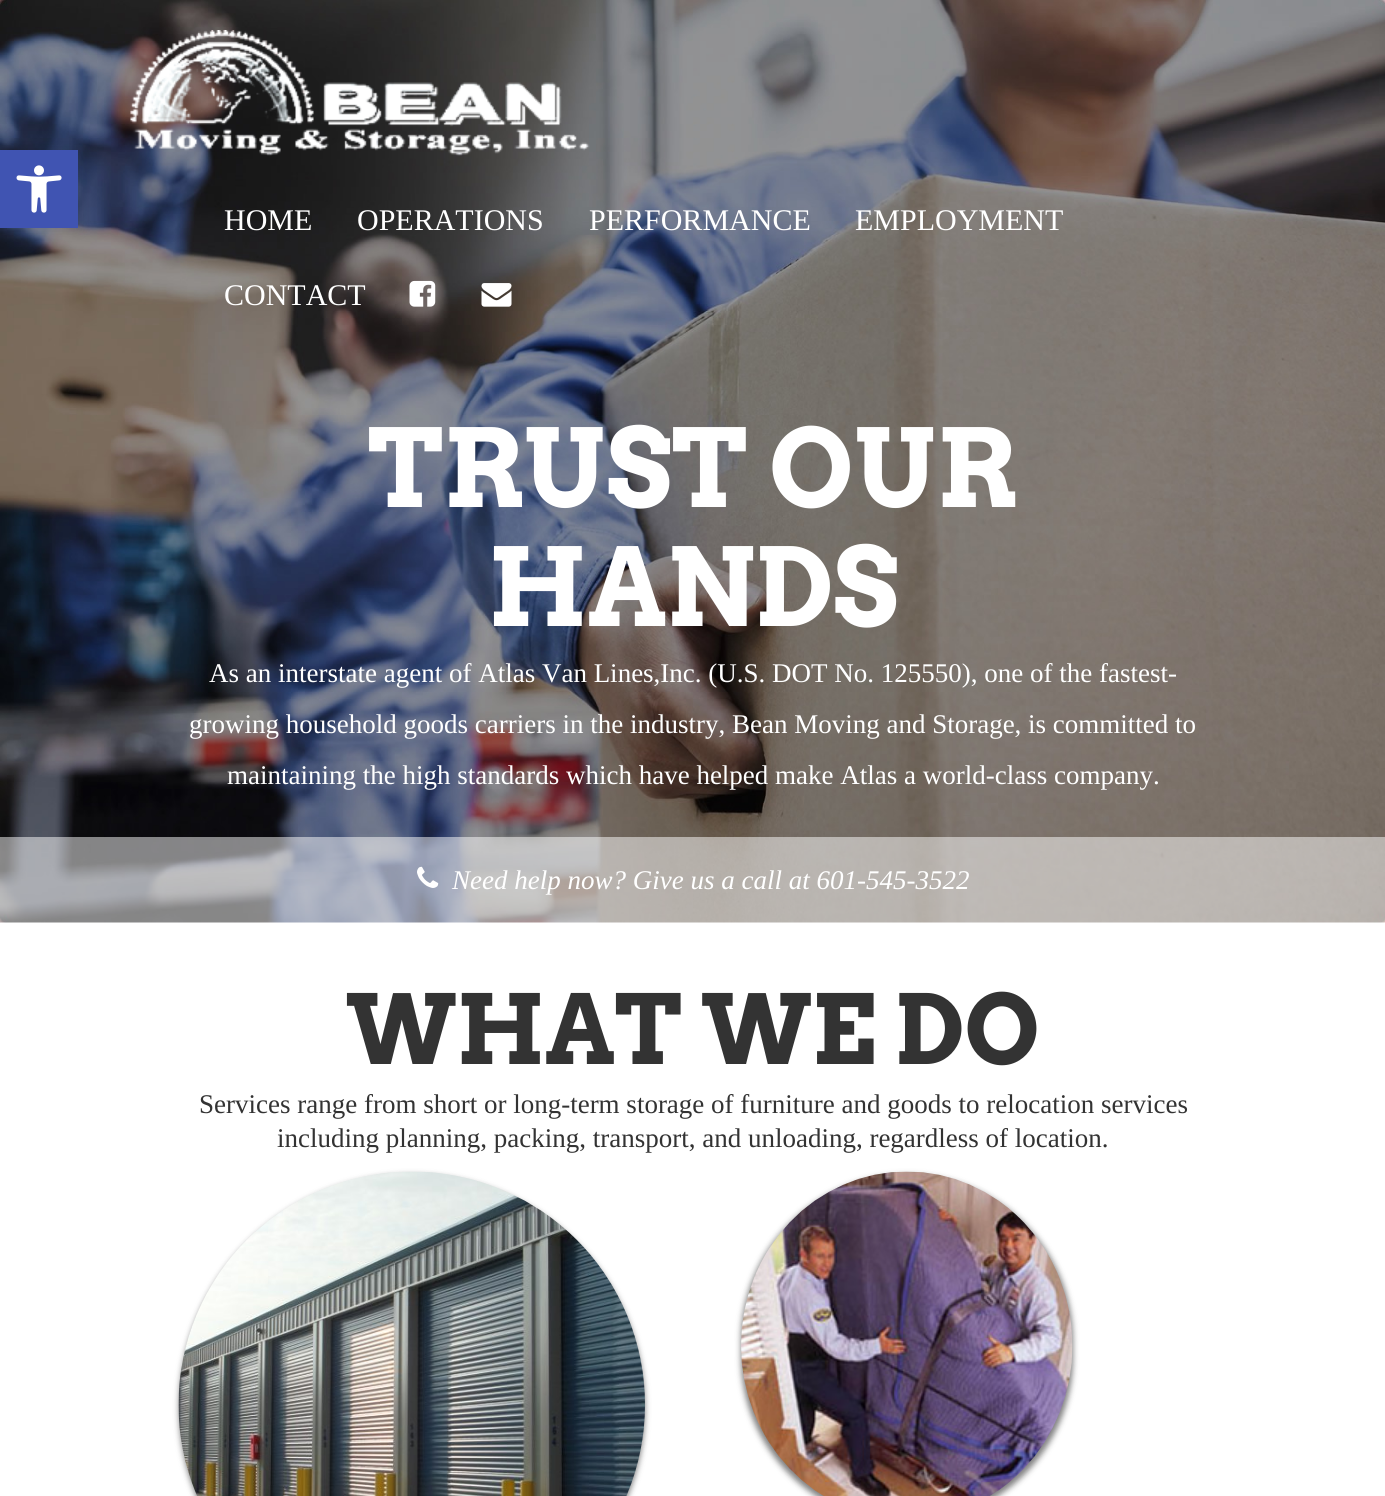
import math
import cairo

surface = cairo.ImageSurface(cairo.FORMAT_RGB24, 1385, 1496)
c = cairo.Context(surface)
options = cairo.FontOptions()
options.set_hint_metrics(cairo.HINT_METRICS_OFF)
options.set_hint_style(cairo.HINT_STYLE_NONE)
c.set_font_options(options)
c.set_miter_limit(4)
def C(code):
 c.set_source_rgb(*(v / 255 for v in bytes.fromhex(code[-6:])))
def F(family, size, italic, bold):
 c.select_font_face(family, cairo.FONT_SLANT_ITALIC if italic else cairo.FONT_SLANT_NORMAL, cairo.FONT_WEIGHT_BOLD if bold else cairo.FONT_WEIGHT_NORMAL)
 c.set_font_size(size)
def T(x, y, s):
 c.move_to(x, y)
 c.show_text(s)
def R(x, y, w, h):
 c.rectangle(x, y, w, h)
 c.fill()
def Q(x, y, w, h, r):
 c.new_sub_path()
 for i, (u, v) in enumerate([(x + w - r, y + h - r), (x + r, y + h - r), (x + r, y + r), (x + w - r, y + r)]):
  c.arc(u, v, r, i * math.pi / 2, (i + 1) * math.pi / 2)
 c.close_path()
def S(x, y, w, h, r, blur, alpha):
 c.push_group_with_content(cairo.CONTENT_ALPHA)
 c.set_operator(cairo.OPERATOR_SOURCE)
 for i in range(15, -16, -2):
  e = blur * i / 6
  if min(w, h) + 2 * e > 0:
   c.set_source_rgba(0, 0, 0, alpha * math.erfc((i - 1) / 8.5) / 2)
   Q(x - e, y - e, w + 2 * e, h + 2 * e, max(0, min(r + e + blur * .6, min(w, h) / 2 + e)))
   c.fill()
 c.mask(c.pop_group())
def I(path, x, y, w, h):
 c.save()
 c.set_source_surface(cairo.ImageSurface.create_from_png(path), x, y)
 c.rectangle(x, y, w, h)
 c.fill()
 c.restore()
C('ffffff')
c.paint()
I('2.png',0,0,1385,923)
C('000000')
S(0,150,78,78,0,7.5,.1)
C('4054b2')
R(0,150,78,78)
I('1.png',16,165,46,48)
I('3.png',130,30,460,126)
F('Liberation Serif',30,0,0)
C('ffffff')
T(224,230,'HOME')
T(357,230,'OPERATIONS')
T(589,230,'PERFORMANCE')
T(855,230,'EMPLOYMENT')
T(224,305,'CONTACT')
I('4.png',409,280,27,27)
I('5.png',481,283,31,24)
F('Arvo',108,0,1)
T(368,507,'TRUST OUR')
T(488,626,'HANDS')
F('Liberation Serif',27,0,0)
T(209,682,'As an interstate agent of Atlas Van Lines,Inc. (U.S. DOT No. 125550), one of the fastest-')
T(189,733,'growing household goods carriers in the industry, Bean Moving and Storage, is committed to')
T(227,784,'maintaining the high standards which have helped make Atlas a world-class company.')
c.set_source_rgba(1,1,1,0.5)
R(0,837,1385,86)
I('6.png',417,866,22,22)
F('Liberation Serif',27,1,0)
C('ffffff')
T(452,889,'Need help now? Give us a call at 601-545-3522')
F('Arvo',96,0,1)
C('333333')
T(346,1064,'WHAT WE DO')
F('Liberation Serif',27,0,0)
T(199,1113,'Services range from short or long-term storage of furniture and goods to relocation services')
T(277,1147,'including planning, packing, transport, and unloading, regardless of location.')
C('000000')
S(179,1175,466,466,233,3,.5)
I('7.png',178,1171,467,325)
S(741,1175,332,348,166,3,.5)
I('8.png',741,1171,332,325)
surface.write_to_png('o.png')
